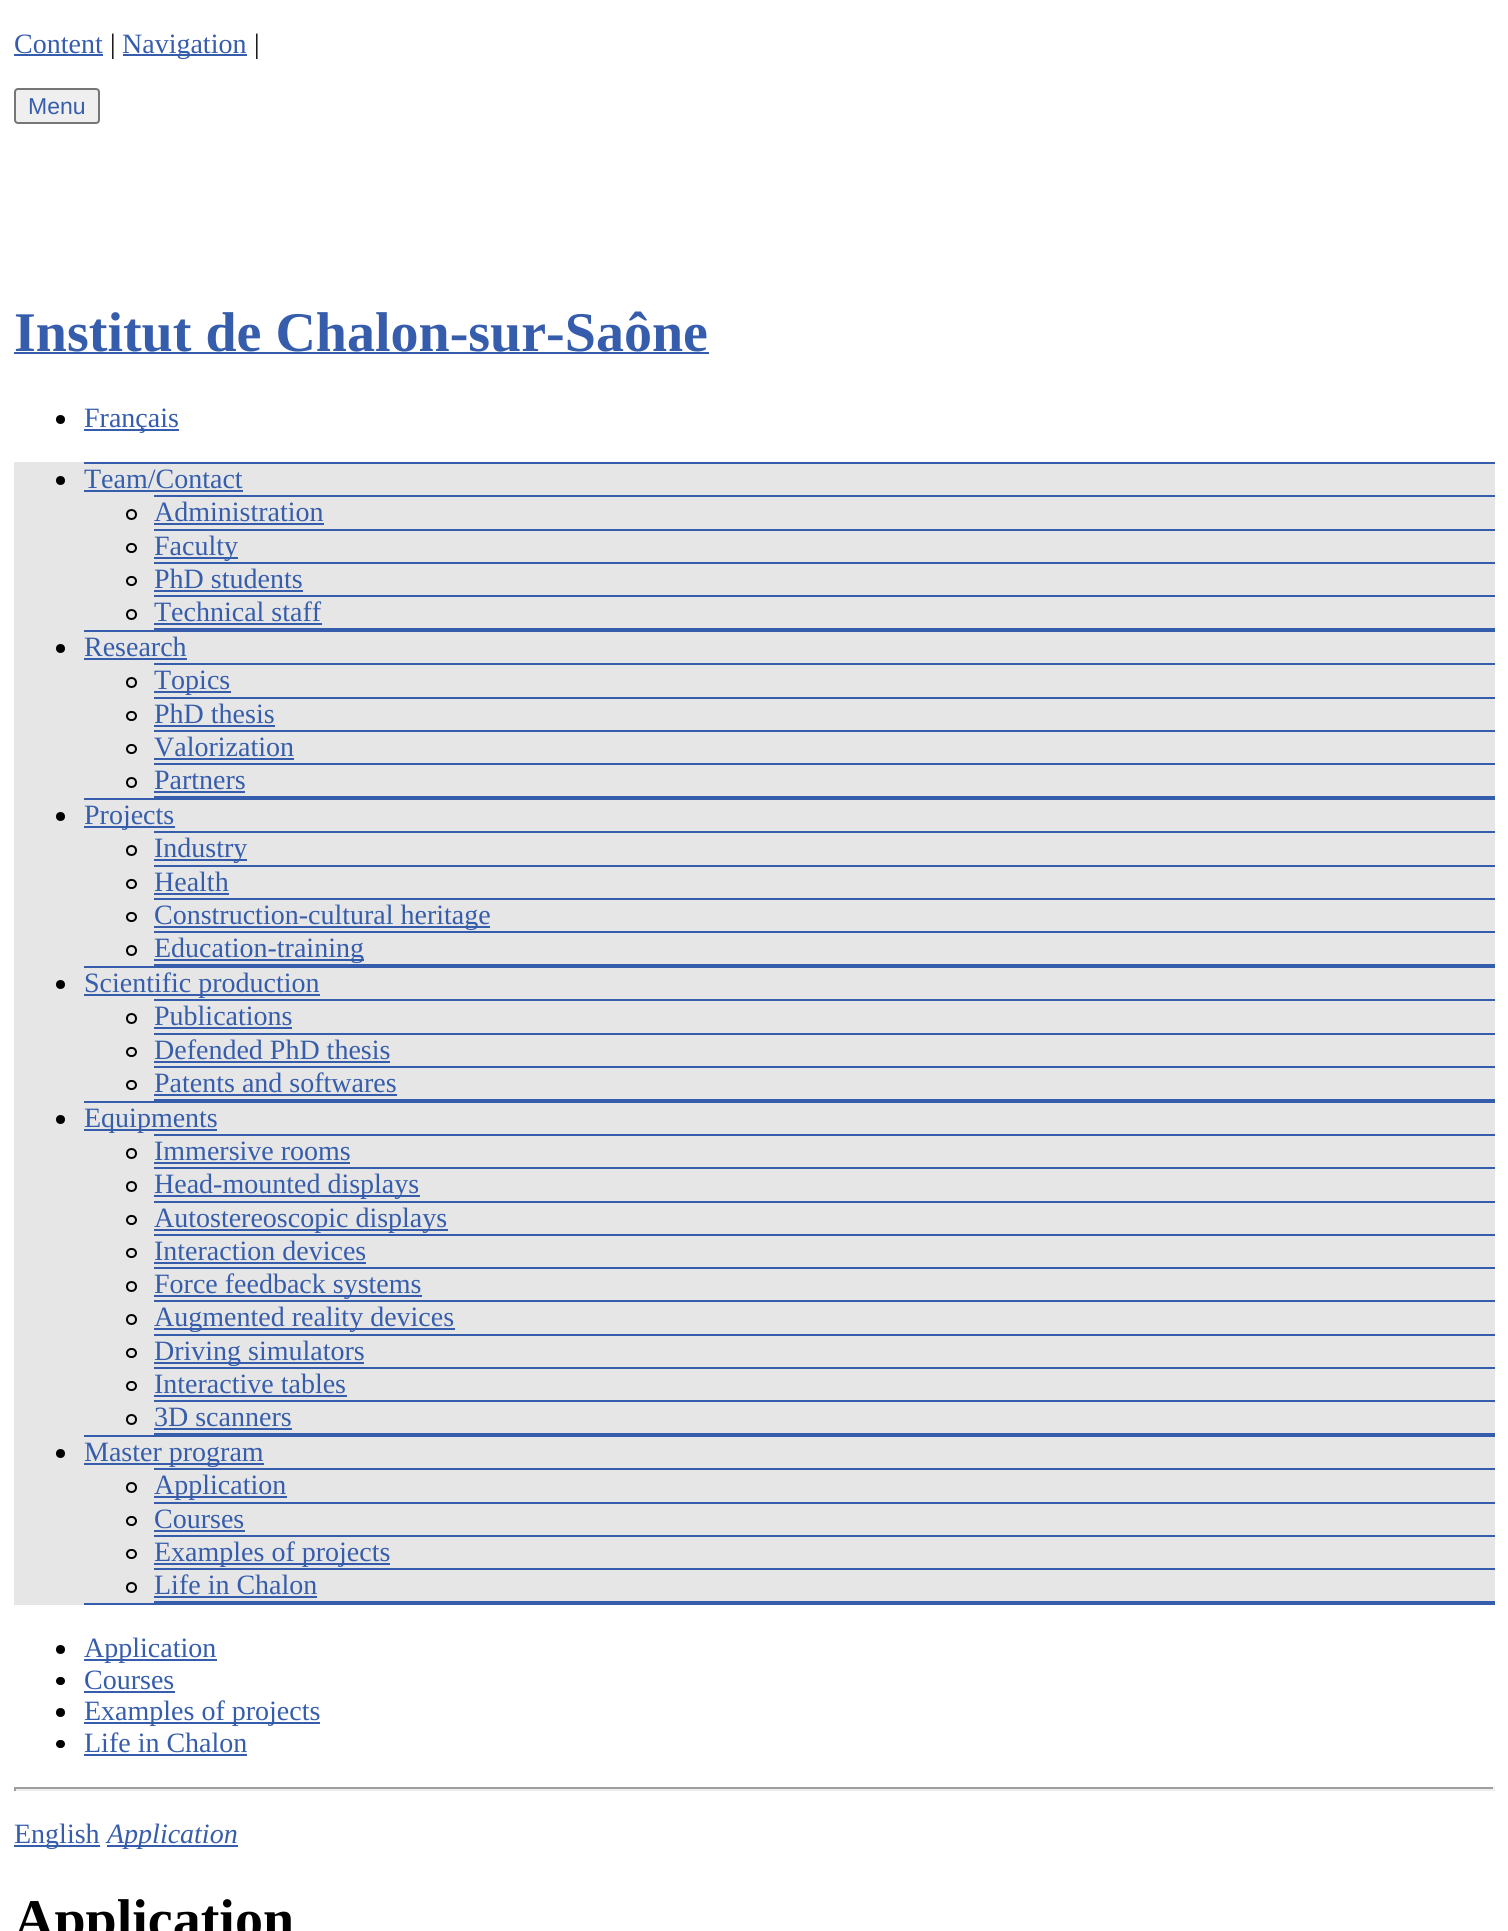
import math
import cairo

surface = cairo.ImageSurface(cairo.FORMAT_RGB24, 1508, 1931)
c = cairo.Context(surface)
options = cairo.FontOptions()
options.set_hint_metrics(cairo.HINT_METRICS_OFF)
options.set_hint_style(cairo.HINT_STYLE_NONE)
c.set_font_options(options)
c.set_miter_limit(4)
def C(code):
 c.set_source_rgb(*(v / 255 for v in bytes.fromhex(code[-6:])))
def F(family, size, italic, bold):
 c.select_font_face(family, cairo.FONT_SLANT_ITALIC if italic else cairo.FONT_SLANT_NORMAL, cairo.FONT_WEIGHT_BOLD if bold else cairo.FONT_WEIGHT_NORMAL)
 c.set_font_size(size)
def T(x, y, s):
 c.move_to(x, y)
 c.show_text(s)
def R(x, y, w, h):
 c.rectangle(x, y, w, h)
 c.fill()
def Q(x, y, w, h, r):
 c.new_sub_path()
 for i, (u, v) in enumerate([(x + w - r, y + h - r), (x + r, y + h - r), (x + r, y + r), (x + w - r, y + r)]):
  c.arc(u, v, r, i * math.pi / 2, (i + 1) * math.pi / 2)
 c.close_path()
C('ffffff')
c.paint()
F('Liberation Serif',28,0,0)
C('365dac')
T(14,53,'Content')
R(14,54,89,2)
C('000000')
T(110,53,'|')
C('365dac')
R(123,54,124,2)
T(122,53,'Navigation')
C('000000')
T(254,53,'|')
C('efefef')
Q(15,89,84,34,3)
c.fill_preserve()
C('767676')
c.stroke()
F('Liberation Sans',23,0,0)
C('365dac')
T(28,114,'Menu')
F('Liberation Serif',56,0,1)
T(14,351,'Institut de Chalon-sur-Saône')
R(14,352,695,2)
C('000000')
c.new_path()
c.arc(60.5,419.5,4.5,0,2 * math.pi)
c.fill()
C('365dac')
R(84,429,95,2)
F('Liberation Serif',28,0,0)
T(84,427,'Français')
C('e6e6e6')
R(14,462,1481,1143)
C('365dac')
R(84,462,1411,2)
R(84,630,1411,2)
C('000000')
c.new_path()
c.arc(60.5,480.5,4.5,0,2 * math.pi)
c.fill()
C('365dac')
T(84,488,'Team/Contact')
R(84,490,159,2)
R(154,495,1341,2)
R(154,529,1341,2)
c.new_path()
c.arc(131.5,514.5,4.5,0,2 * math.pi)
C('000000')
c.stroke()
C('365dac')
T(154,521,'Administration')
R(154,523,170,2)
R(154,562,1341,2)
Q(127,544,9,8,4)
C('000000')
c.stroke()
C('365dac')
R(154,557,84,2)
T(154,555,'Faculty')
R(154,595,1341,2)
Q(127,577,9,8,4)
C('000000')
c.stroke()
C('365dac')
T(154,588,'PhD students')
R(154,590,149,2)
R(154,628,1341,2)
c.new_path()
c.arc(131.5,614.5,4.5,0,2 * math.pi)
C('000000')
c.stroke()
C('365dac')
T(154,621,'Technical staff')
R(154,623,168,2)
R(84,798,1411,2)
C('000000')
c.new_path()
c.arc(60.5,648.5,4.5,0,2 * math.pi)
c.fill()
C('365dac')
T(84,656,'Research')
R(84,658,103,2)
R(154,663,1341,2)
R(154,697,1341,2)
c.new_path()
c.arc(131.5,682.5,4.5,0,2 * math.pi)
C('000000')
c.stroke()
C('365dac')
R(154,691,77,2)
T(154,689,'Topics')
R(154,730,1341,2)
Q(127,712,9,8,4)
C('000000')
c.stroke()
C('365dac')
T(154,723,'PhD thesis')
R(154,725,121,2)
R(154,763,1341,2)
Q(127,745,9,8,4)
C('000000')
c.stroke()
C('365dac')
T(154,756,'Valorization')
R(154,758,140,2)
R(154,796,1341,2)
c.new_path()
c.arc(131.5,782.5,4.5,0,2 * math.pi)
C('000000')
c.stroke()
C('365dac')
T(154,789,'Partners')
R(154,791,91,2)
R(84,966,1411,2)
C('000000')
c.new_path()
c.arc(60.5,816.5,4.5,0,2 * math.pi)
c.fill()
C('365dac')
R(84,826,91,2)
T(84,824,'Projects')
R(154,831,1341,2)
R(154,865,1341,2)
c.new_path()
c.arc(131.5,850.5,4.5,0,2 * math.pi)
C('000000')
c.stroke()
C('365dac')
R(154,859,93,2)
T(154,857,'Industry')
R(154,898,1341,2)
Q(127,880,9,8,4)
C('000000')
c.stroke()
C('365dac')
T(154,891,'Health')
R(154,893,75,2)
R(154,931,1341,2)
Q(127,913,9,8,4)
C('000000')
c.stroke()
C('365dac')
R(154,926,336,2)
T(154,924,'Construction-cultural heritage')
R(154,964,1341,2)
c.new_path()
c.arc(131.5,950.5,4.5,0,2 * math.pi)
C('000000')
c.stroke()
C('365dac')
R(154,959,210,2)
T(154,957,'Education-training')
R(84,1101,1411,2)
C('000000')
c.new_path()
c.arc(60.5,984.5,4.5,0,2 * math.pi)
c.fill()
C('365dac')
R(84,994,236,2)
T(84,992,'Scientific production')
R(154,999,1341,2)
R(154,1033,1341,2)
c.new_path()
c.arc(131.5,1018.5,4.5,0,2 * math.pi)
C('000000')
c.stroke()
C('365dac')
T(154,1025,'Publications')
R(154,1027,138,2)
R(154,1066,1341,2)
Q(127,1048,9,8,4)
C('000000')
c.stroke()
C('365dac')
T(154,1059,'Defended PhD thesis')
R(154,1061,236,2)
R(154,1099,1341,2)
Q(127,1081,9,8,4)
C('000000')
c.stroke()
C('365dac')
T(154,1092,'Patents and softwares')
R(154,1094,243,2)
R(84,1435,1411,2)
C('000000')
c.new_path()
c.arc(60.5,1119.5,4.5,0,2 * math.pi)
c.fill()
C('365dac')
R(84,1129,133,2)
T(84,1127,'Equipments')
R(154,1134,1341,2)
R(154,1167,1341,2)
c.new_path()
c.arc(131.5,1153.5,4.5,0,2 * math.pi)
C('000000')
c.stroke()
C('365dac')
T(154,1160,'Immersive rooms')
R(154,1162,196,2)
R(154,1201,1341,2)
c.new_path()
c.arc(131.5,1186.5,4.5,0,2 * math.pi)
C('000000')
c.stroke()
C('365dac')
R(154,1195,266,2)
T(154,1193,'Head-mounted displays')
R(154,1234,1341,2)
Q(127,1216,9,8,4)
C('000000')
c.stroke()
C('365dac')
R(154,1229,294,2)
T(154,1227,'Autostereoscopic displays')
R(154,1267,1341,2)
Q(127,1249,9,8,4)
C('000000')
c.stroke()
C('365dac')
T(154,1260,'Interaction devices')
R(154,1262,212,2)
R(154,1300,1341,2)
c.new_path()
c.arc(131.5,1286.5,4.5,0,2 * math.pi)
C('000000')
c.stroke()
C('365dac')
R(154,1295,268,2)
T(154,1293,'Force feedback systems')
R(154,1334,1341,2)
c.new_path()
c.arc(131.5,1319.5,4.5,0,2 * math.pi)
C('000000')
c.stroke()
C('365dac')
R(154,1328,301,2)
T(154,1326,'Augmented reality devices')
R(154,1367,1341,2)
Q(127,1349,9,8,4)
C('000000')
c.stroke()
C('365dac')
R(154,1362,210,2)
T(154,1360,'Driving simulators')
R(154,1400,1341,2)
Q(127,1382,9,8,4)
C('000000')
c.stroke()
C('365dac')
T(154,1393,'Interactive tables')
R(154,1395,193,2)
R(154,1433,1341,2)
c.new_path()
c.arc(131.5,1419.5,4.5,0,2 * math.pi)
C('000000')
c.stroke()
C('365dac')
T(154,1426,'3D scanners')
R(154,1428,138,2)
R(84,1603,1411,2)
C('000000')
c.new_path()
c.arc(60.5,1453.5,4.5,0,2 * math.pi)
c.fill()
C('365dac')
R(84,1463,180,2)
T(84,1461,'Master program')
R(154,1468,1341,2)
R(154,1502,1341,2)
c.new_path()
c.arc(131.5,1487.5,4.5,0,2 * math.pi)
C('000000')
c.stroke()
C('365dac')
R(154,1496,133,2)
T(154,1494,'Application')
R(154,1535,1341,2)
Q(127,1517,9,8,4)
C('000000')
c.stroke()
C('365dac')
T(154,1528,'Courses')
R(154,1530,91,2)
R(154,1568,1341,2)
Q(127,1550,9,8,4)
C('000000')
c.stroke()
C('365dac')
R(154,1563,236,2)
T(154,1561,'Examples of projects')
R(154,1601,1341,2)
c.new_path()
c.arc(131.5,1587.5,4.5,0,2 * math.pi)
C('000000')
c.stroke()
C('365dac')
T(154,1594,'Life in Chalon')
R(154,1596,163,2)
C('000000')
c.new_path()
c.arc(60.5,1649.5,4.5,0,2 * math.pi)
c.fill()
C('365dac')
R(84,1659,133,2)
T(84,1657,'Application')
C('000000')
Q(56,1677,9,8,4)
c.fill()
C('365dac')
T(84,1689,'Courses')
R(84,1691,91,2)
C('000000')
c.new_path()
c.arc(60.5,1712.5,4.5,0,2 * math.pi)
c.fill()
C('365dac')
R(84,1722,236,2)
T(84,1720,'Examples of projects')
C('000000')
Q(56,1740,9,8,4)
c.fill()
C('365dac')
T(84,1752,'Life in Chalon')
R(84,1754,163,2)
C('9f9f9f')
R(14,1787,1481,2)
C('eeeeee')
R(1493,1787,2,4)
R(14,1789,1481,2)
C('9f9f9f')
R(14,1787,2,4)
C('365dac')
R(14,1845,86,2)
T(14,1843,'English')
R(107,1845,131,2)
F('Liberation Serif',28,1,0)
T(107,1843,'Application')
F('Liberation Serif',56,0,1)
C('000000')
T(14,1938,'Application')
surface.write_to_png('o.png')
